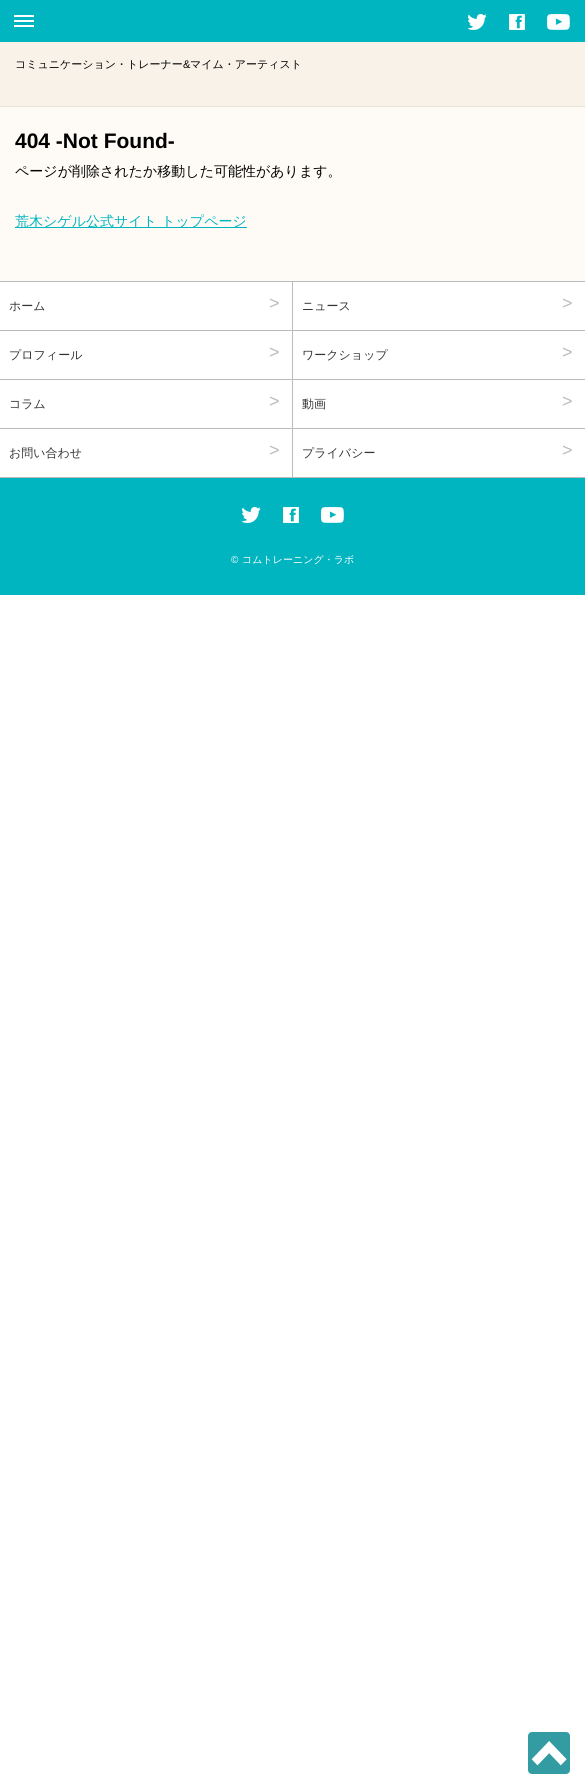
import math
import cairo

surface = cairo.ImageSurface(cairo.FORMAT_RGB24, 585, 1789)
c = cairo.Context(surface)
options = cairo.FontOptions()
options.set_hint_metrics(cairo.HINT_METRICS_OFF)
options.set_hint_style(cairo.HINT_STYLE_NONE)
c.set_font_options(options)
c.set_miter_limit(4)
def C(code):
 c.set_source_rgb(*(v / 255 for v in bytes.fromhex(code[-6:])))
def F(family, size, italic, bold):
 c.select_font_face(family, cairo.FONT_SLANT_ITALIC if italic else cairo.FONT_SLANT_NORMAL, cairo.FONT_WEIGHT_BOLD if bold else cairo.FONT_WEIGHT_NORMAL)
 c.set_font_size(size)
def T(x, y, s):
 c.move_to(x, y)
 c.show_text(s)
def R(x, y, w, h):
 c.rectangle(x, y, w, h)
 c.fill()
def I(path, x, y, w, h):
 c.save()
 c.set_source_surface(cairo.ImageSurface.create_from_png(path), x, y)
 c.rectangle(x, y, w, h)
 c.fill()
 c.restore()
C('ffffff')
c.paint()
C('f9f2e9')
R(0,42,585,64)
C('00b5c0')
R(0,0,585,42)
C('ffffff')
R(14,20,20,2)
R(14,15,20,2)
R(14,25,20,2)
I('1.png',467,14,20,16)
I('2.png',509,14,16,16)
I('3.png',547,14,23,16)
F('WenQuanYi Zen Hei Medium',11,0,0)
C('000000')
T(15,68,'コミュニケーション・トレーナー')
F('Liberation Sans',11,0,0)
T(183,68,'&')
F('WenQuanYi Zen Hei Medium',11,0,0)
T(190,68,'マイム・アーティスト')
C('fefbf6')
R(0,107,585,174)
C('e7e2da')
R(0,106,585,1)
F('Liberation Sans',21,0,1)
C('000000')
T(15,148,'404 -Not Found-')
F('WenQuanYi Zen Hei Medium',14,0,0)
T(15,176,'ページが削除されたか移動した可能性があります。')
C('00b5c0')
R(15,227,232,1)
T(15,226,'荒木シゲル公式サイト トップページ')
R(0,478,585,117)
C('bbbbbb')
R(0,281,585,1)
R(292,282,1,196)
R(0,330,585,1)
F('WenQuanYi Zen Hei Medium',12,0,0)
C('333333')
T(9,310,'ホーム')
F('Liberation Sans',18,0,0)
C('bbbbbb')
T(269,309,'>')
F('WenQuanYi Zen Hei Medium',12,0,0)
C('333333')
T(302,310,'ニュース')
F('Liberation Sans',18,0,0)
C('bbbbbb')
T(562,309,'>')
R(0,379,585,1)
F('WenQuanYi Zen Hei Medium',12,0,0)
C('333333')
T(9,359,'プロフィール')
F('Liberation Sans',18,0,0)
C('bbbbbb')
T(269,358,'>')
F('WenQuanYi Zen Hei Medium',12,0,0)
C('333333')
T(302,359,'ワークショップ')
F('Liberation Sans',18,0,0)
C('bbbbbb')
T(562,358,'>')
R(0,428,585,1)
F('WenQuanYi Zen Hei Medium',12,0,0)
C('333333')
T(9,408,'コラム')
F('Liberation Sans',18,0,0)
C('bbbbbb')
T(269,407,'>')
F('WenQuanYi Zen Hei Medium',12,0,0)
C('333333')
T(302,408,'動画')
F('Liberation Sans',18,0,0)
C('bbbbbb')
T(562,407,'>')
R(0,477,585,1)
F('WenQuanYi Zen Hei Medium',12,0,0)
C('333333')
T(9,457,'お問い合わせ')
F('Liberation Sans',18,0,0)
C('bbbbbb')
T(269,456,'>')
F('WenQuanYi Zen Hei Medium',12,0,0)
C('333333')
T(302,457,'プライバシー')
F('Liberation Sans',18,0,0)
C('bbbbbb')
T(562,456,'>')
I('1.png',241,507,20,16)
I('2.png',283,507,16,16)
I('3.png',321,507,23,16)
F('Liberation Sans',10,0,0)
C('ffffff')
T(231,563,'©')
F('WenQuanYi Zen Hei Medium',10,0,0)
T(242,563,'コムトレーニング・ラボ')
I('4.png',528,1732,42,42)
surface.write_to_png('o.png')
